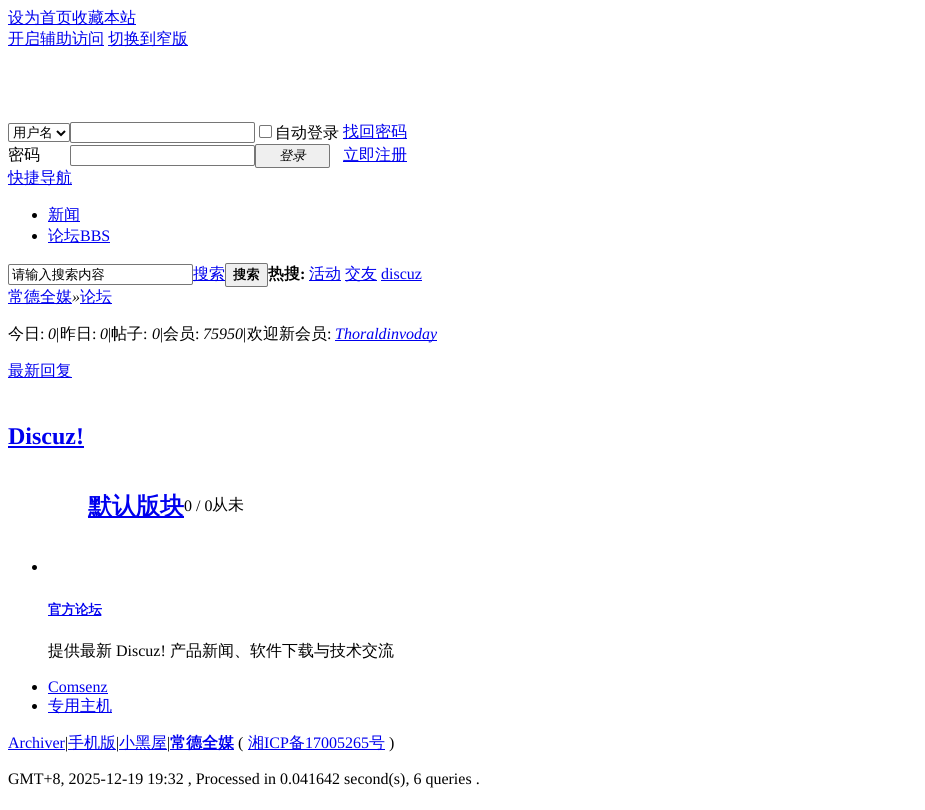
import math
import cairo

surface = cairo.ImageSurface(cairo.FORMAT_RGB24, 925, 810)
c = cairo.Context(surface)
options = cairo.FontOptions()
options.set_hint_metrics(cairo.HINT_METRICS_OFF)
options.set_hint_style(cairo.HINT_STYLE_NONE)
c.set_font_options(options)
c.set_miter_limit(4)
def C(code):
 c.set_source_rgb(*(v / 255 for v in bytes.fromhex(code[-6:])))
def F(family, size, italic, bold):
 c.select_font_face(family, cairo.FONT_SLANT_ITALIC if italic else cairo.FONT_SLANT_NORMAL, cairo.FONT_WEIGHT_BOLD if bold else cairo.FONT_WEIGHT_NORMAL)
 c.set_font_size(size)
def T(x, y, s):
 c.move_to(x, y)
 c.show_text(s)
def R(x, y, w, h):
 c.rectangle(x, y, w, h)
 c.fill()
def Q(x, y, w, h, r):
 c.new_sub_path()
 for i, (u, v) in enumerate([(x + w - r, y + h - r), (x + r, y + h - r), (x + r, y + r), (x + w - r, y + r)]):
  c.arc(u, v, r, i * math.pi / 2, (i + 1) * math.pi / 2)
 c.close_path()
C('ffffff')
c.paint()
C('0000ee')
R(8,24,128,1)
F('WenQuanYi Zen Hei Medium',16,0,0)
T(8,23,'设为首页收藏本站')
R(8,45,96,1)
T(8,44,'开启辅助访问')
R(108,45,80,1)
T(108,44,'切换到窄版')
Q(8.5,123.5,61,18,1.5)
C('767676')
c.set_line_width(1)
c.stroke()
c.new_path()
c.move_to(57,131)
c.line_to(61,135)
c.line_to(65,131)
C('000000')
c.set_line_width(2)
c.stroke()
F('WenQuanYi Zen Hei Medium',13.25,0,0)
T(13,137,'用户名')
Q(70.5,122.5,184,20,1.5)
C('767676')
c.set_line_width(1)
c.stroke()
Q(259.5,125.5,12,12,1.5)
c.stroke()
F('WenQuanYi Zen Hei Medium',16,0,0)
C('000000')
T(275,138,'自动登录')
C('0000ee')
R(343,138,64,1)
T(343,137,'找回密码')
C('000000')
T(8,160,'密码')
Q(70.5,145.5,184,20,1.5)
C('767676')
c.stroke()
C('efefef')
Q(255.5,144.5,74,23,1.5)
c.fill_preserve()
C('767676')
c.stroke()
F('WenQuanYi Zen Hei Medium',13.25,1,0)
C('000000')
T(279,160,'登录')
C('0000ee')
R(343,161,64,1)
F('WenQuanYi Zen Hei Medium',16,0,0)
T(343,160,'立即注册')
R(8,184,64,1)
T(8,183,'快捷导航')
C('000000')
c.new_path()
c.arc(34.5,215.5,2.5,0,2 * math.pi)
c.fill()
C('0000ee')
R(48,221,32,1)
T(48,220,'新闻')
C('000000')
c.new_path()
c.arc(34.5,236.5,2.5,0,2 * math.pi)
c.fill()
C('0000ee')
R(48,242,62,1)
T(48,241,'论坛')
F('Liberation Serif',16,0,0)
T(80,241,'BBS')
Q(8.5,264.5,184,20,1.5)
C('767676')
c.stroke()
F('WenQuanYi Zen Hei Medium',13.25,0,0)
C('000000')
T(12,279,'请输入搜索内容')
C('0000ee')
R(193,280,32,1)
F('WenQuanYi Zen Hei Medium',16,0,0)
T(193,279,'搜索')
C('efefef')
Q(225.5,263.5,42,23,1.5)
c.fill_preserve()
C('767676')
c.stroke()
F('WenQuanYi Zen Hei',13.25,0,1)
C('000000')
T(233,279,'搜索')
F('WenQuanYi Zen Hei',16,0,1)
T(268,279,'热搜')
F('Liberation Serif',16,0,1)
T(300,279,':')
C('0000ee')
R(309,280,32,1)
F('WenQuanYi Zen Hei Medium',16,0,0)
T(309,279,'活动')
R(345,280,32,1)
T(345,279,'交友')
F('Liberation Serif',16,0,0)
T(381,279,'discuz')
R(381,280,41,1)
R(8,303,64,1)
F('WenQuanYi Zen Hei Medium',16,0,0)
T(8,302,'常德全媒')
F('Liberation Serif',16,1,0)
C('000000')
T(72,302,'»')
C('0000ee')
R(80,303,32,1)
F('WenQuanYi Zen Hei Medium',16,0,0)
T(80,302,'论坛')
C('000000')
T(8,339,'今日')
F('Liberation Serif',16,0,0)
T(40,339,':')
F('Liberation Serif',16,1,0)
T(48,339,'0')
F('Liberation Serif',16,0,0)
T(56,339,'|')
F('WenQuanYi Zen Hei Medium',16,0,0)
T(60,339,'昨日')
F('Liberation Serif',16,0,0)
T(92,339,':')
F('Liberation Serif',16,1,0)
T(100,339,'0')
F('Liberation Serif',16,0,0)
T(108,339,'|')
F('WenQuanYi Zen Hei Medium',16,0,0)
T(111,339,'帖子')
F('Liberation Serif',16,0,0)
T(143,339,':')
F('Liberation Serif',16,1,0)
T(152,339,'0')
F('Liberation Serif',16,0,0)
T(160,339,'|')
F('WenQuanYi Zen Hei Medium',16,0,0)
T(163,339,'会员')
F('Liberation Serif',16,0,0)
T(195,339,':')
F('Liberation Serif',16,1,0)
T(203,339,'75950')
F('Liberation Serif',16,0,0)
T(243,339,'|')
F('WenQuanYi Zen Hei Medium',16,0,0)
T(247,339,'欢迎新会员')
F('Liberation Serif',16,0,0)
T(327,339,':')
C('0000ee')
R(335,340,102,1)
F('Liberation Serif',16,1,0)
T(335,339,'Thoraldinvoday')
R(8,377,64,1)
F('WenQuanYi Zen Hei Medium',16,0,0)
T(8,376,'最新回复')
F('Liberation Serif',24,0,1)
T(8,444,'Discuz!')
R(8,446,76,2)
R(88,516,96,2)
F('WenQuanYi Zen Hei',24,0,1)
T(88,514,'默认版块')
F('Liberation Serif',16,0,0)
C('000000')
T(184,511,'0 / 0')
F('WenQuanYi Zen Hei Medium',16,0,0)
T(212,510,'从未')
c.new_path()
c.arc(34.5,567.5,2.5,0,2 * math.pi)
c.fill()
C('0000ee')
R(48,615,53,1)
F('WenQuanYi Zen Hei',13.5,0,1)
T(48,614,'官方论坛')
F('WenQuanYi Zen Hei Medium',16,0,0)
C('000000')
T(48,656,'提供最新')
F('Liberation Serif',16,0,0)
T(116,656,'Discuz!')
F('WenQuanYi Zen Hei Medium',16,0,0)
T(170,656,'产品新闻、软件下载与技术交流')
c.new_path()
c.arc(34.5,687.5,2.5,0,2 * math.pi)
c.fill()
F('Liberation Serif',16,0,0)
C('0000ee')
T(48,692,'Comsenz')
R(48,693,60,1)
C('000000')
c.new_path()
c.arc(34.5,706.5,2.5,0,2 * math.pi)
c.fill()
C('0000ee')
R(48,712,64,1)
F('WenQuanYi Zen Hei Medium',16,0,0)
T(48,711,'专用主机')
F('Liberation Serif',16,0,0)
T(8,748,'Archiver')
R(8,749,57,1)
C('000000')
T(65,748,'|')
C('0000ee')
R(68,749,48,1)
F('WenQuanYi Zen Hei Medium',16,0,0)
T(68,748,'手机版')
F('Liberation Serif',16,0,0)
C('000000')
T(116,748,'|')
C('0000ee')
R(119,749,48,1)
F('WenQuanYi Zen Hei Medium',16,0,0)
T(119,748,'小黑屋')
F('Liberation Serif',16,0,0)
C('000000')
T(167,748,'|')
C('0000ee')
R(170,749,64,1)
F('WenQuanYi Zen Hei',16,0,1)
T(170,748,'常德全媒')
F('Liberation Serif',16,0,0)
C('000000')
T(238,748,'(')
C('0000ee')
R(248,749,137,1)
F('WenQuanYi Zen Hei Medium',16,0,0)
T(248,748,'湘')
F('Liberation Serif',16,0,0)
T(264,748,'ICP')
F('WenQuanYi Zen Hei Medium',16,0,0)
T(289,748,'备')
F('Liberation Serif',16,0,0)
T(305,748,'17005265')
F('WenQuanYi Zen Hei Medium',16,0,0)
T(369,748,'号')
F('Liberation Serif',16,0,0)
C('000000')
T(389,748,')')
T(8,784,'GMT+8, 2025-12-19 19:32 , Processed in 0.041642 second(s), 6 queries .')
surface.write_to_png('o.png')
